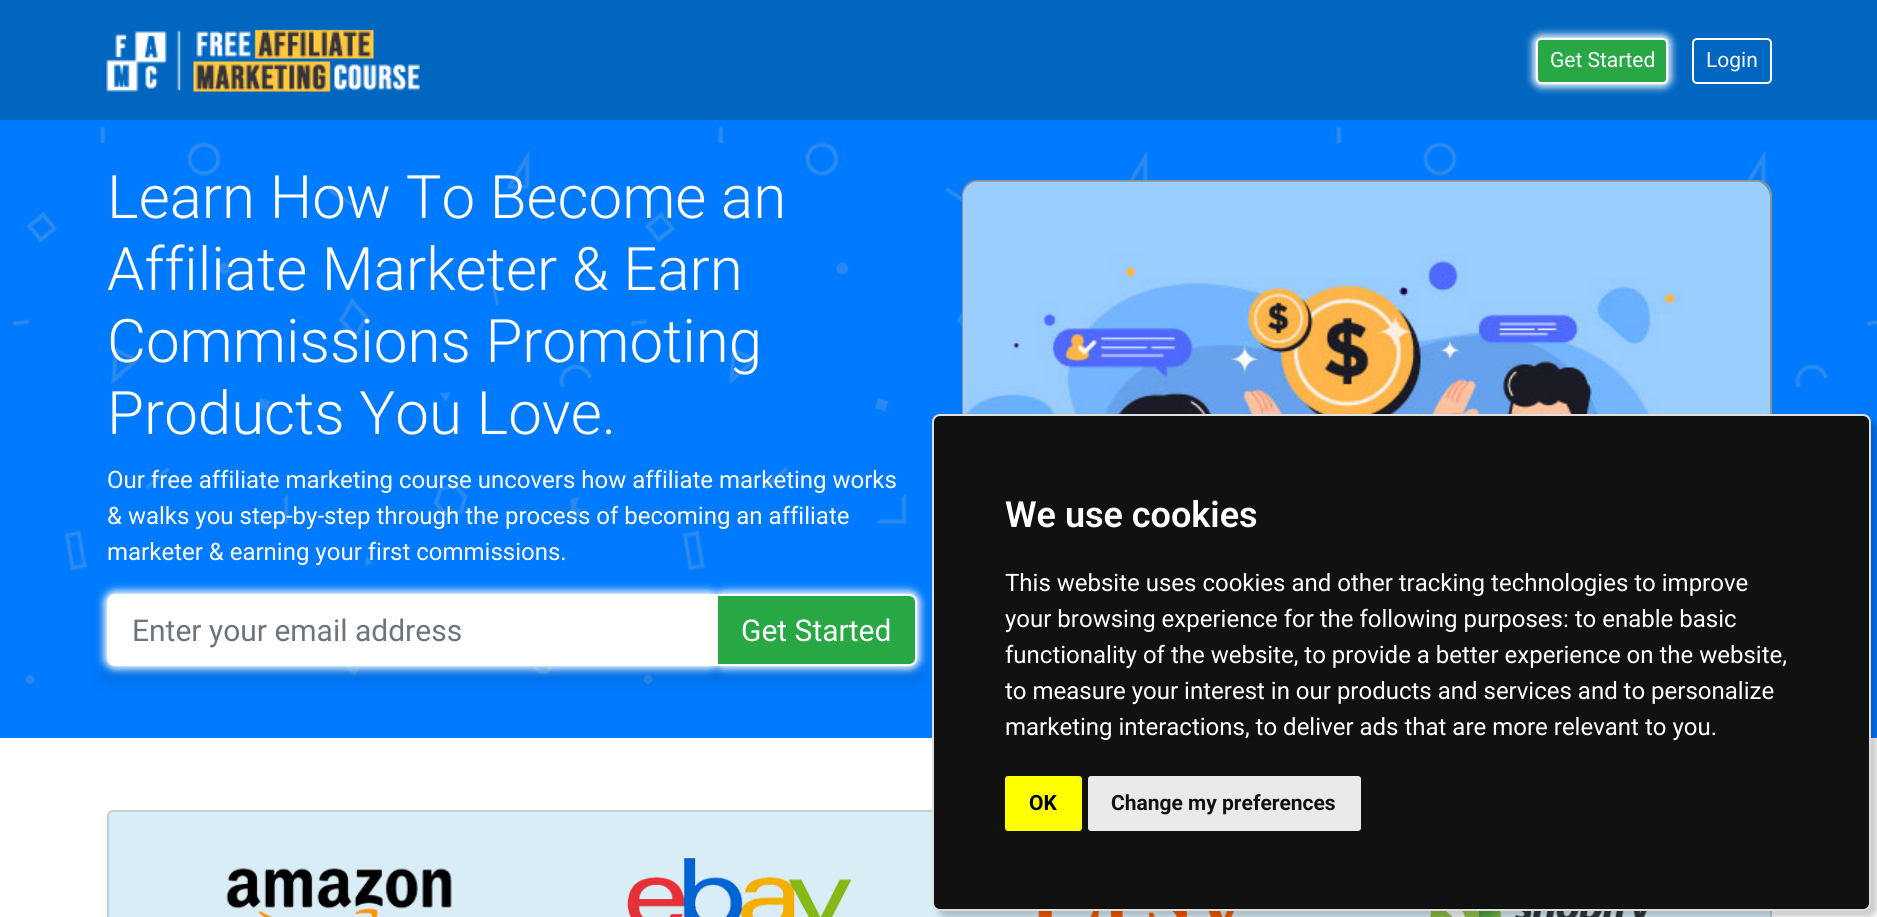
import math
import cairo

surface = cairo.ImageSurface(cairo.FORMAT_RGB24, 1877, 917)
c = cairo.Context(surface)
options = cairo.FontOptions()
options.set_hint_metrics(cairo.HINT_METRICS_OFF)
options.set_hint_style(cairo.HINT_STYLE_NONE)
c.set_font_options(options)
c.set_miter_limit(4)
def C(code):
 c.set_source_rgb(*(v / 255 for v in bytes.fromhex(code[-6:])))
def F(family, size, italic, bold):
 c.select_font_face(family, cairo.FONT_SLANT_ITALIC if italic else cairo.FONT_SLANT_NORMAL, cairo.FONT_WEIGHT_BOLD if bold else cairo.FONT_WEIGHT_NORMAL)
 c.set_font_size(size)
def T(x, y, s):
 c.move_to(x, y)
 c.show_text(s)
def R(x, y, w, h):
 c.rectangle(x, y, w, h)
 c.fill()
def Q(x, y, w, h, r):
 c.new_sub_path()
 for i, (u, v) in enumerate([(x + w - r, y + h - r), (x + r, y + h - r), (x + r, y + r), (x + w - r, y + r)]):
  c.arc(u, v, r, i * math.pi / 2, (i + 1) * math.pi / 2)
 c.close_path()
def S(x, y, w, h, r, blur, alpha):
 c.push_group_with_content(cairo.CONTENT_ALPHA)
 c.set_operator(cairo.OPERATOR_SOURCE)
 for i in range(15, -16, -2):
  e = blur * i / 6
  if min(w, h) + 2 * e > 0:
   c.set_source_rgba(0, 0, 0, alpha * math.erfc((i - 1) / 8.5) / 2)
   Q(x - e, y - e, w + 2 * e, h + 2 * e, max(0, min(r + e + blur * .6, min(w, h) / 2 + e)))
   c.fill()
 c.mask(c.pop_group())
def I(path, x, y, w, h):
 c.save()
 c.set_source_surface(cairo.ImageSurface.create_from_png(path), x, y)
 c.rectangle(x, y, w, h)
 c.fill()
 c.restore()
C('ffffff')
c.paint()
C('0066bf')
R(0,0,1877,120)
I('1.png',106,29,314,63)
C('ffffff')
S(1533,35,138,52,8,4,1)
C('28a745')
Q(1537,39,130,44,4)
c.fill_preserve()
C('ffffff')
c.stroke()
F('Roboto',21,0,0)
T(1550,67,'Get Started')
Q(1693,39,78,44,4)
C('f8f9fa')
c.stroke()
T(1706,67,'Login')
C('007bff')
R(0,120,1877,618)
I('2.png',12,126,1865,559)
F('Roboto Light',60,0,0)
C('ffffff')
T(107,218,'Learn How To Become an')
T(107,290,'Affiliate Marketer & Earn')
T(107,362,'Commissions Promoting')
T(107,434,'Products You Love.')
F('Roboto',24,0,0)
T(107,488,'Our free affiliate marketing course uncovers how affiliate marketing works')
T(107,524,'& walks you step-by-step through the process of becoming an affiliate')
T(107,560,'marketer & earning your first commissions.')
c.save()
c.set_fill_rule(cairo.FILL_RULE_EVEN_ODD)
c.new_path()
c.move_to(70,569)
c.line_to(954,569)
c.line_to(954,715)
c.line_to(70,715)
c.close_path()
c.move_to(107,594)
c.line_to(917,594)
c.line_to(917,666)
c.line_to(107,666)
c.close_path()
c.clip()
C('000000')
S(107,606,810,72,0,12,.15)
c.restore()
C('ffffff')
S(104,591,616,78,11,4,1)
C('ffffff')
c.new_path()
c.move_to(115,595)
c.line_to(716,595)
c.line_to(716,665)
c.line_to(115,665)
c.curve_to(111,665,108,662,108,658)
c.line_to(108,602)
c.curve_to(108,598,111,595,115,595)
c.close_path()
c.fill_preserve()
c.stroke()
F('Roboto',30,0,0)
C('6c757d')
T(132,641,'Enter your email address')
C('ffffff')
S(713,591,207,78,11,4,1)
C('28a745')
c.new_path()
c.move_to(717,595)
c.line_to(909,595)
c.curve_to(913,595,916,598,916,602)
c.line_to(916,658)
c.curve_to(916,662,913,665,909,665)
c.line_to(717,665)
c.close_path()
c.fill_preserve()
C('ffffff')
c.stroke()
T(741,641,'Get Started')
Q(963,181,808,490,14)
C('929191')
c.stroke()
I('3.png',963,181,807,233)
C('d9edf7')
Q(107,810,1665,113,6)
c.fill()
Q(108,811,1663,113,5)
c.set_source_rgba(0,0,0,0.12)
c.stroke()
I('4.png',226,868,226,49)
I('5.png',627,858,225,59)
I('6.png',1038,911,196,6)
I('7.png',1429,911,219,6)
C('000000')
S(938,420,939,497,8,3,.2)
C('111111')
Q(933,415,937,495,7)
c.fill_preserve()
C('dfdfdf')
c.stroke()
F('Roboto SemiBold',36,0,0)
C('ffffff')
T(1005,527,'We use cookies')
F('Roboto',24,0,0)
T(1005,591,'This website uses cookies and other tracking technologies to improve')
T(1005,627,'your browsing experience for the following purposes: to enable basic')
T(1005,663,'functionality of the website, to provide a better experience on the website,')
T(1005,699,'to measure your interest in our products and services and to personalize')
T(1005,735,'marketing interactions, to deliver ads that are more relevant to you.')
C('ffff00')
Q(1005,776,77,55,3)
c.fill()
F('Roboto',21,0,1)
C('000000')
T(1029,810,'OK')
C('eaeaea')
Q(1088,776,273,55,3)
c.fill()
C('111111')
T(1111,810,'Change my preferences')
surface.write_to_png('o.png')
